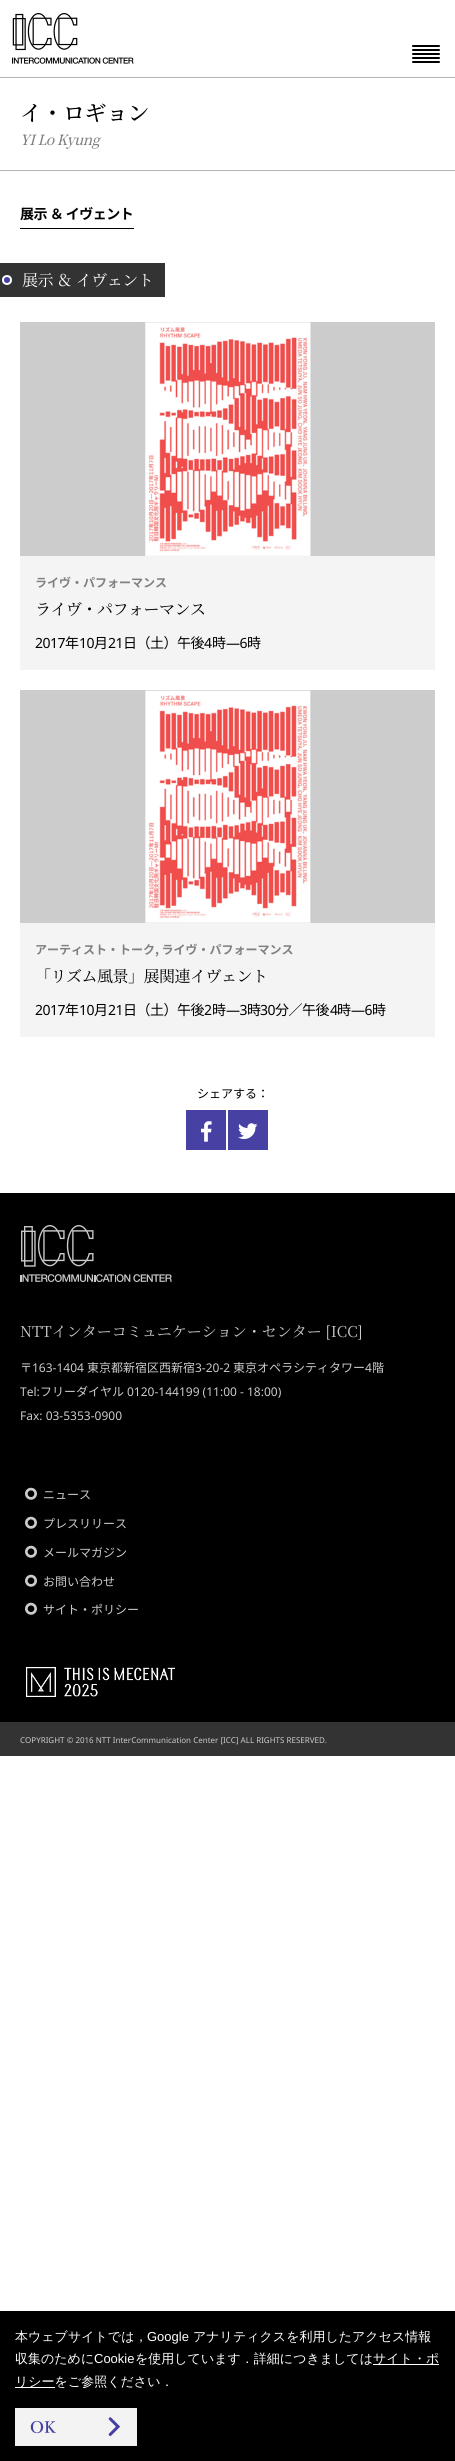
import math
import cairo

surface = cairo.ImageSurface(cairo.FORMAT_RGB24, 455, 2461)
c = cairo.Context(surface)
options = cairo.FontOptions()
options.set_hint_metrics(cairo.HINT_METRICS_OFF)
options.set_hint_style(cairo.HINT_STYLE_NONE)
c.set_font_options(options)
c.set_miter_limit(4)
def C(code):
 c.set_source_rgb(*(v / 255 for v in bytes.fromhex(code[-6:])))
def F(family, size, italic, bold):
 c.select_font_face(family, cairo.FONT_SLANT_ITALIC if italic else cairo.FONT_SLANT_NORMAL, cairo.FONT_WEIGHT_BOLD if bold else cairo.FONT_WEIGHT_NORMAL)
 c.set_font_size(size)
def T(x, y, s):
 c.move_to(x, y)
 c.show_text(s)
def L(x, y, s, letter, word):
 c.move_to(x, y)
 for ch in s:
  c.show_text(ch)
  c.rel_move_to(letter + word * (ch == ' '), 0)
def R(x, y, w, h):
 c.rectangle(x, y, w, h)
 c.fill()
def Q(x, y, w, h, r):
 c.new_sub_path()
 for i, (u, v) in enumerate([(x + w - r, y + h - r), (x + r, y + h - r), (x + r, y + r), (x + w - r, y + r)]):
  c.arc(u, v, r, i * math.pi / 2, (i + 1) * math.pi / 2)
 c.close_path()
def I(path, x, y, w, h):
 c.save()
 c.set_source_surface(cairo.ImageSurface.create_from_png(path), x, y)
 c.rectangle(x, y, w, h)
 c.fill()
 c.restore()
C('ffffff')
c.paint()
C('b3b3b3')
R(0,77,455,1)
I('1.png',12,13,122,51)
C('000000')
Q(412,45,28,2,1)
c.fill()
Q(412,49,28,2,1)
c.fill()
Q(412,53,28,2,1)
c.fill()
Q(412,57,28,2,1)
c.fill()
Q(412,61,28,2,1)
c.fill()
C('b3b3b3')
R(0,170,455,1)
F('Noto Serif JP Medium',22,0,0)
C('000000')
L(20,121,'イ・ロギョン',-.5,0)
F('Noto Serif JP Medium',14,1,0)
C('808080')
L(20,145,'YI Lo Kyung',-.5,0)
C('000000')
R(20,228,114,1)
F('Noto Sans JP',14,0,1)
L(20,219,'展示 ＆ イヴェント',-.5,0)
C('333333')
R(0,263,165,34)
C('4641a3')
c.new_path()
c.arc(7,280,4,0,2 * math.pi)
c.fill_preserve()
C('ffffff')
c.stroke()
F('Noto Serif JP',16,0,0)
L(22,286,'展示 ＆ イヴェント',-.5,0)
C('f4f4f4')
R(20,556,415,114)
I('2.png',20,322,415,234)
F('Noto Sans JP',12,0,1)
C('808080')
T(35,587,'ライヴ・パフォーマンス')
F('Noto Serif JP',16,0,0)
C('000000')
L(35,615,'ライヴ・パフォーマンス',-.5,0)
F('Noto Sans',14,0,0)
L(35,648,'2017',-.5,0)
F('Noto Sans JP',14,0,0)
L(65,648,'年',-.5,0)
F('Noto Sans',14,0,0)
L(79,648,'10',-.5,0)
F('Noto Sans JP',14,0,0)
L(94,648,'月',-.5,0)
F('Noto Sans',14,0,0)
L(108,648,'21',-.5,0)
F('Noto Sans JP',14,0,0)
L(123,648,'日（土）午後',-.5,0)
F('Noto Sans',14,0,0)
L(204,648,'4',-.5,0)
F('Noto Sans JP',14,0,0)
L(212,648,'時',-.5,0)
F('Noto Sans',14,0,0)
L(226,648,'—6',-.5,0)
F('Noto Sans JP',14,0,0)
L(247,648,'時',-.5,0)
C('f4f4f4')
R(20,923,415,114)
I('3.png',20,690,415,233)
F('Noto Sans JP',12,0,1)
C('808080')
T(35,954,'アーティスト・トーク, ライヴ・パフォーマンス')
F('Noto Serif JP',16,0,0)
C('000000')
L(35,982,'「リズム風景」展関連イヴェント',-.5,0)
F('Noto Sans',14,0,0)
L(35,1015,'2017',-.5,0)
F('Noto Sans JP',14,0,0)
L(65,1015,'年',-.5,0)
F('Noto Sans',14,0,0)
L(79,1015,'10',-.5,0)
F('Noto Sans JP',14,0,0)
L(94,1015,'月',-.5,0)
F('Noto Sans',14,0,0)
L(108,1015,'21',-.5,0)
F('Noto Sans JP',14,0,0)
L(123,1015,'日（土）午後',-.5,0)
F('Noto Sans',14,0,0)
L(204,1015,'2',-.5,0)
F('Noto Sans JP',14,0,0)
L(212,1015,'時',-.5,0)
F('Noto Sans',14,0,0)
L(226,1015,'—3',-.5,0)
F('Noto Sans JP',14,0,0)
L(247,1015,'時',-.5,0)
F('Noto Sans',14,0,0)
L(260,1015,'30',-.5,0)
F('Noto Sans JP',14,0,0)
L(275,1015,'分／午後',-.5,0)
F('Noto Sans',14,0,0)
L(330,1015,'4',-.5,0)
F('Noto Sans JP',14,0,0)
L(337,1015,'時',-.5,0)
F('Noto Sans',14,0,0)
L(351,1015,'—6',-.5,0)
F('Noto Sans JP',14,0,0)
L(372,1015,'時',-.5,0)
F('Noto Sans JP',12,0,0)
T(197,1098,'シェアする：')
C('4641a3')
R(186,1110,40,40)
I('4.png',201,1121,11,21)
R(228,1110,40,40)
I('5.png',238,1123,20,16)
C('000000')
R(0,1193,455,529)
I('6.png',20,1225,152,57)
F('Noto Serif JP',15,0,0)
C('cbcbcb')
T(20,1337,'NTTインターコミュニケーション・センター [ICC]')
F('Noto Sans JP',12,0,0)
T(20,1372,'〒')
F('Noto Sans',12,0,0)
T(32,1372,'163-1404')
F('Noto Sans JP',12,0,0)
T(87,1372,'東京都新宿区西新宿')
F('Noto Sans',12,0,0)
T(195,1372,'3-20-2')
F('Noto Sans JP',12,0,0)
T(233,1372,'東京オペラシティタワー')
F('Noto Sans',12,0,0)
T(365,1372,'4')
F('Noto Sans JP',12,0,0)
T(372,1372,'階')
F('Noto Sans',12,0,0)
T(20,1396,'Tel:')
F('Noto Sans JP',12,0,0)
T(40,1396,'フリーダイヤル')
F('Noto Sans',12,0,0)
T(127,1396,'0120-144199 (11:00 - 18:00)')
T(20,1420,'Fax: 03-5353-0900')
I('7.png',25,1487,12,13)
F('Noto Sans JP',12,0,0)
T(43,1499,'ニュース')
I('7.png',25,1516,12,13)
T(43,1528,'プレスリリース')
I('7.png',25,1545,12,13)
T(43,1557,'メールマガジン')
I('7.png',25,1574,12,13)
T(43,1586,'お問い合わせ')
I('7.png',25,1602,12,13)
T(43,1614,'サイト・ポリシー')
I('8.png',26,1667,149,30)
C('333333')
R(0,1722,455,34)
F('Noto Sans',8,0,0)
C('cbcbcb')
T(20,1743,'COPYRIGHT © 2016 NTT InterCommunication Center [ICC] ALL RIGHTS RESERVED.')
C('000000')
R(0,2311,455,150)
F('WenQuanYi Zen Hei Medium',13,0,0)
C('ffffff')
T(15,2341,'本ウェブサイトでは，')
F('Liberation Sans',13,0,0)
T(147,2341,'Google')
F('WenQuanYi Zen Hei Medium',13,0,0)
T(193,2341,'アナリティクスを利用したアクセス情報')
T(15,2363,'収集のために')
F('Liberation Sans',13,0,0)
T(94,2363,'Cookie')
F('WenQuanYi Zen Hei Medium',13,0,0)
T(135,2363,'を使用しています．詳細につきましては')
R(373,2364,66,1)
T(373,2363,'サイト・ポ')
R(15,2387,40,1)
T(15,2386,'リシーをご参照ください．')
I('9.png',15,2408,122,38)
surface.write_to_png('o.png')
